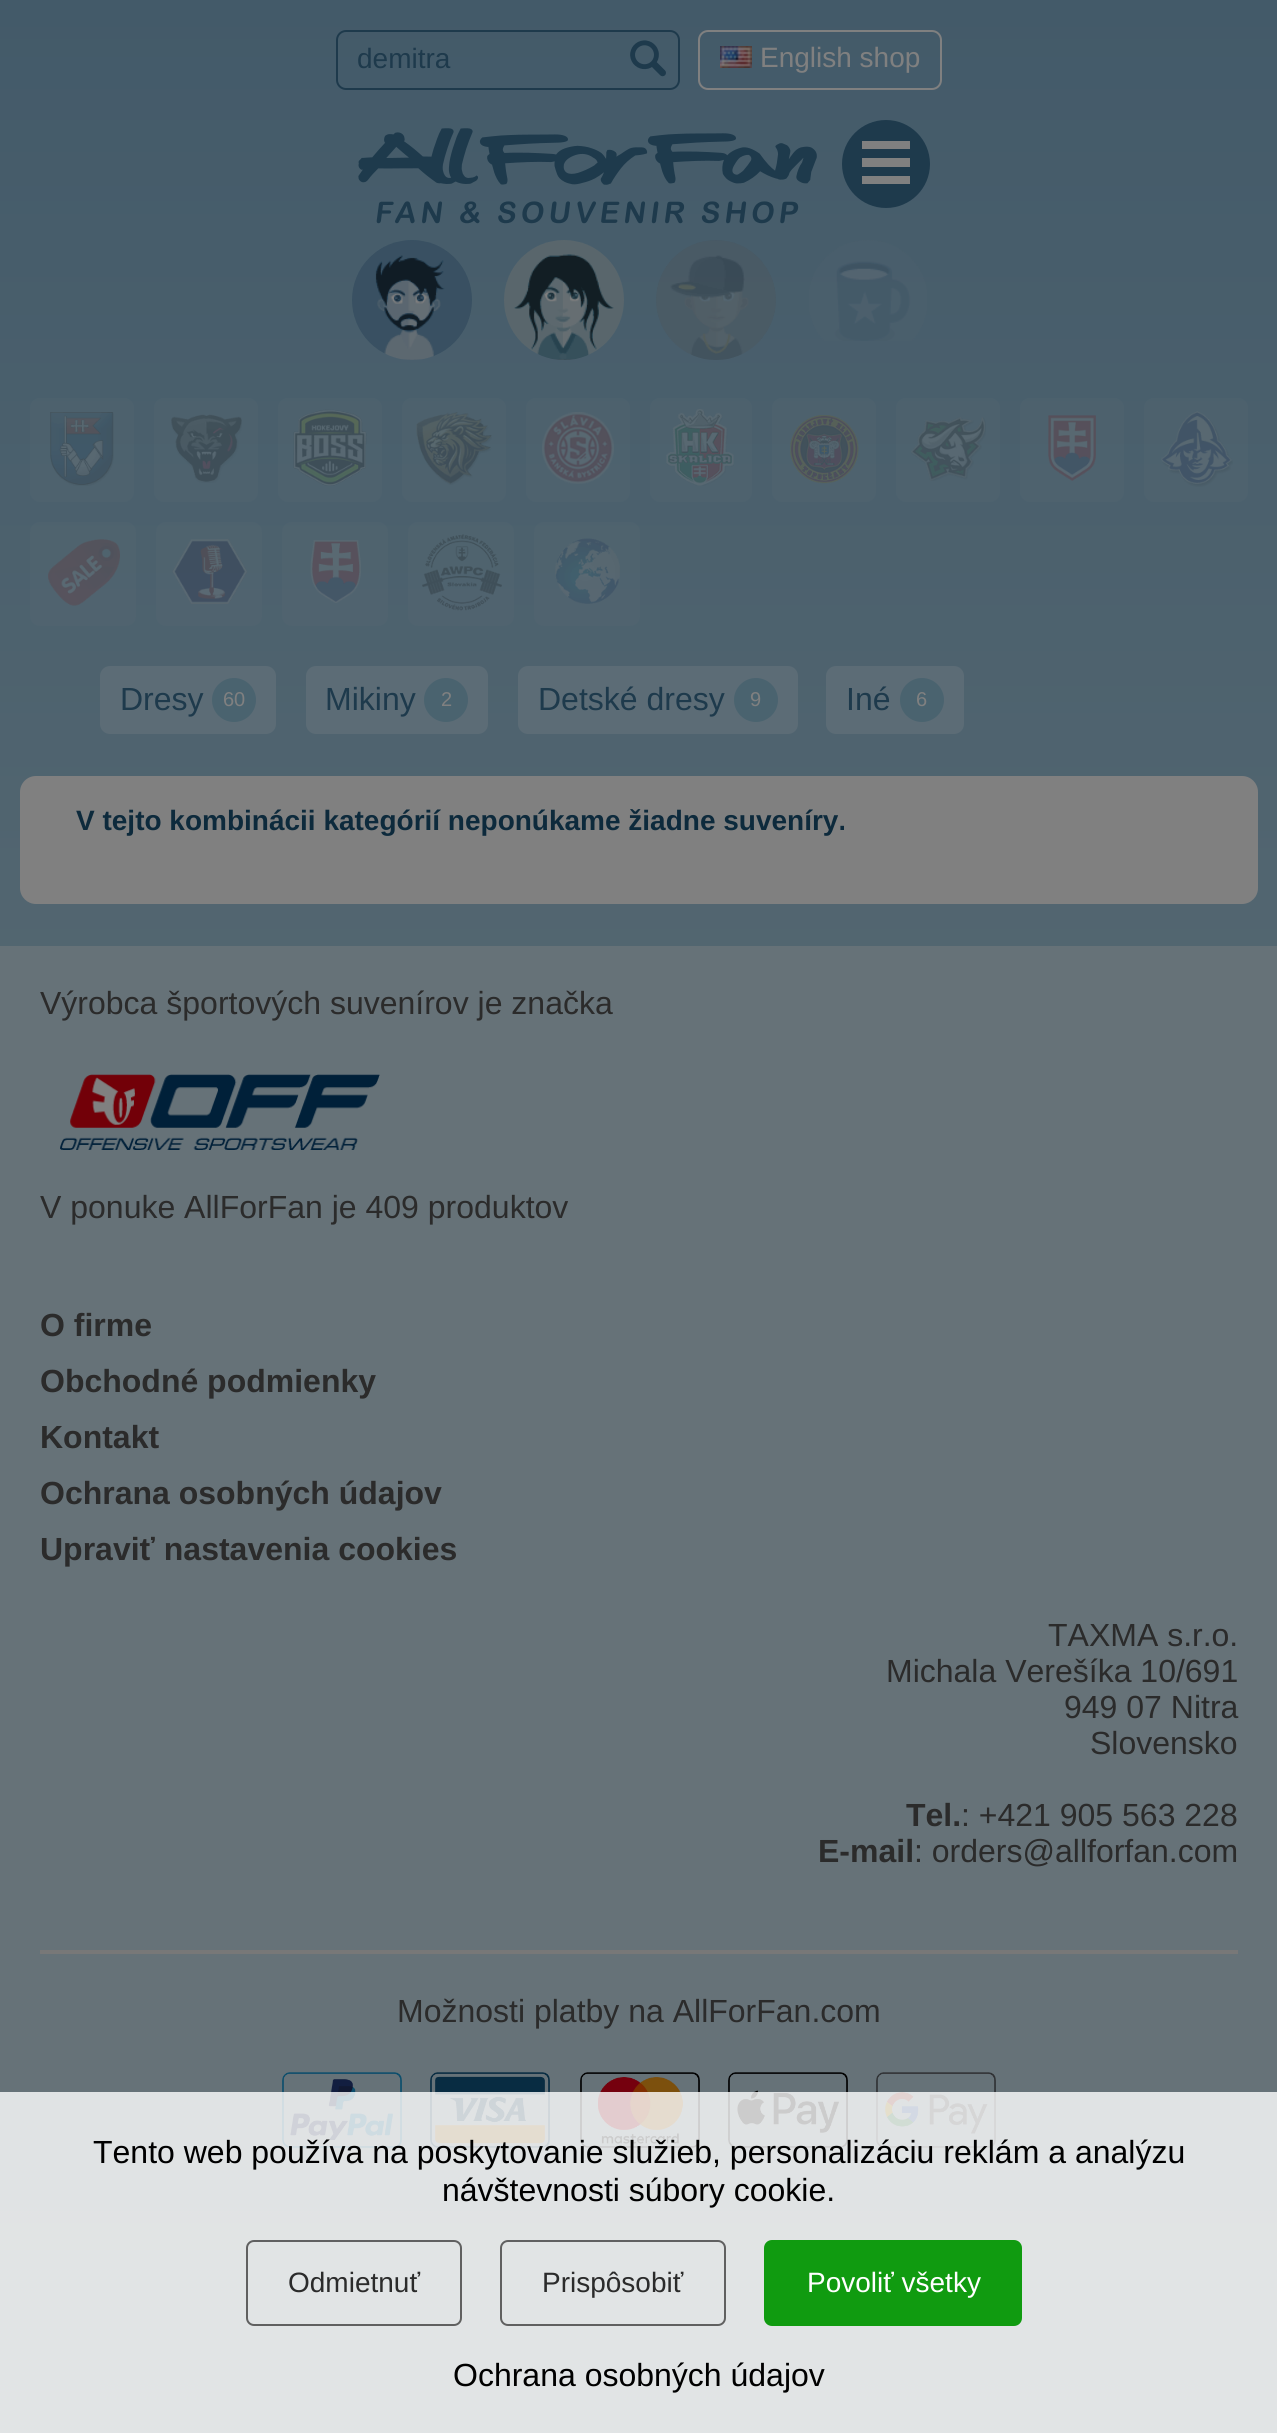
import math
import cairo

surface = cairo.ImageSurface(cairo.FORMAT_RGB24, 1277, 2433)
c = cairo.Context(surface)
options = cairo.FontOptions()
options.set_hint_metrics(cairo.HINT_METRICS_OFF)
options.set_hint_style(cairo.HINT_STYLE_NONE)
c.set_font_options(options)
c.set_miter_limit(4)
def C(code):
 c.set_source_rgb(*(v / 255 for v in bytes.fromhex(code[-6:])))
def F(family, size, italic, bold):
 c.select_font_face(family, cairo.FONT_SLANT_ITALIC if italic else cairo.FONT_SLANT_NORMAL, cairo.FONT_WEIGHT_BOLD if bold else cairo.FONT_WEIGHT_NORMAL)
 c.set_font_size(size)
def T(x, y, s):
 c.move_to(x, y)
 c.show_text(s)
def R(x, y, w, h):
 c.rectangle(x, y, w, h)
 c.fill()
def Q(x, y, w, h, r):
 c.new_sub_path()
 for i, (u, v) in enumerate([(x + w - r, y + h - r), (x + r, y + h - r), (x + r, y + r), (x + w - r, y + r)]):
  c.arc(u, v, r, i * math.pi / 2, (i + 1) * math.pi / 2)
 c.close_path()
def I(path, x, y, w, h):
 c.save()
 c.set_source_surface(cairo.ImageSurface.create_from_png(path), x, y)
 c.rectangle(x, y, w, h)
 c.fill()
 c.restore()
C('ffffff')
c.paint()
gradient = cairo.LinearGradient(639,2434,639,0)
gradient.add_color_stop_rgba(0,0.416,0.471,0.486,1)
gradient.add_color_stop_rgba(1,0.263,0.353,0.412,1)
c.set_source(gradient)
R(0,0,1277,2433)
Q(337,31,342,58,9)
C('1e3a4c')
c.stroke()
F('Liberation Sans',28,0,0)
T(357,68,'demitra')
I('1.png',630,40,36,37)
Q(699,31,242,58,9)
C('808080')
c.stroke()
I('2.png',720,46,32,22)
T(760,67,'English shop')
I('3.png',358,128,459,96)
C('1e3a4c')
c.arc(886,164,42,0,2 * math.pi)
c.fill_preserve()
c.set_line_width(4)
c.stroke()
C('808080')
c.new_path()
c.move_to(910,149)
c.line_to(862,149)
c.line_to(862,141)
c.line_to(910,141)
c.close_path()
c.move_to(910,167)
c.line_to(862,167)
c.line_to(862,158)
c.line_to(910,158)
c.close_path()
c.move_to(910,184)
c.line_to(862,184)
c.line_to(862,176)
c.line_to(910,176)
c.close_path()
c.fill()
I('4.png',352,240,120,120)
I('5.png',504,240,120,120)
I('6.png',656,240,120,120)
I('7.png',809,240,118,101)
c.set_source_rgba(0.361,0.424,0.463,0.2)
Q(30,398,104,104,10)
c.fill()
I('8.png',50,412,64,74)
Q(154,398,104,104,10)
c.fill()
I('9.png',171,414,71,69)
Q(278,398,104,104,10)
c.fill()
I('10.png',293,409,74,77)
Q(402,398,104,104,10)
c.fill()
I('11.png',416,412,76,73)
Q(526,398,104,104,10)
c.fill()
I('12.png',542,412,72,72)
Q(650,398,102,104,10)
c.fill()
I('13.png',666,409,68,77)
Q(772,398,104,104,10)
c.fill()
I('14.png',790,415,69,69)
Q(896,398,104,104,10)
c.fill()
I('15.png',911,417,75,64)
Q(1020,398,104,104,10)
c.fill()
I('16.png',1048,415,48,66)
Q(1144,398,104,104,10)
c.fill()
I('17.png',1161,411,72,76)
Q(30,522,106,104,10)
c.fill()
I('18.png',48,539,72,67)
Q(156,522,106,104,10)
c.fill()
I('19.png',172,539,75,65)
Q(282,522,106,104,10)
c.fill()
I('20.png',310,540,51,63)
Q(408,522,106,104,10)
c.fill()
I('21.png',422,534,80,77)
Q(534,522,106,104,10)
c.fill()
I('22.png',555,538,65,66)
C('5c6c76')
Q(100,666,176,68,10)
c.fill()
F('Liberation Sans',32,0,0)
C('1e3a4c')
T(120,710,'Dresy')
C('4a636f')
c.new_path()
c.arc(234,700,22,0,2 * math.pi)
c.fill()
F('Liberation Sans',20,0,0)
C('808080')
T(223,706,'60')
C('5c6c76')
Q(306,666,182,68,10)
c.fill()
F('Liberation Sans',32,0,0)
C('1e3a4c')
T(325,710,'Mikiny')
C('4a636f')
c.new_path()
c.arc(446,700,22,0,2 * math.pi)
c.fill()
F('Liberation Sans',20,0,0)
C('808080')
T(441,706,'2')
C('5c6c76')
Q(518,666,280,68,10)
c.fill()
F('Liberation Sans',32,0,0)
C('1e3a4c')
T(538,710,'Detské dresy')
C('4a636f')
c.new_path()
c.arc(756,700,22,0,2 * math.pi)
c.fill()
F('Liberation Sans',20,0,0)
C('808080')
T(750,706,'9')
C('5c6c76')
Q(826,666,138,68,10)
c.fill()
F('Liberation Sans',32,0,0)
C('1e3a4c')
T(846,710,'Iné')
C('4a636f')
c.new_path()
c.arc(922,700,22,0,2 * math.pi)
c.fill()
F('Liberation Sans',20,0,0)
C('808080')
T(916,706,'6')
Q(20,776,1238,128,16)
c.fill()
F('Liberation Sans',28,0,1)
C('0d2a3c')
T(76,830,'V tejto kombinácii kategórií neponúkame žiadne suveníry.')
C('667278')
R(0,946,1277,1260)
F('Liberation Sans',32,0,0)
C('2b2b2b')
T(40,1014,'Výrobca športových suvenírov je značka')
I('23.png',60,1074,320,76)
T(40,1218,'V ponuke AllForFan je 409 produktov')
F('Liberation Sans',32,0,1)
T(40,1336,'O firme')
T(40,1392,'Obchodné podmienky')
T(40,1448,'Kontakt')
T(40,1504,'Ochrana osobných údajov')
T(40,1560,'Upraviť nastavenia cookies')
F('Liberation Sans',32,0,0)
T(1048,1646,'TAXMA s.r.o.')
T(886,1682,'Michala Verešíka 10/691')
T(1064,1718,'949 07 Nitra')
T(1090,1754,'Slovensko')
F('Liberation Sans',32,0,1)
T(906,1826,'Tel.')
F('Liberation Sans',32,0,0)
T(961,1826,': +421 905 563 228')
F('Liberation Sans',32,0,1)
T(818,1862,'E-mail')
F('Liberation Sans',32,0,0)
T(914,1862,': orders@allforfan.com')
C('787878')
R(40,1950,1198,4)
C('2b2b2b')
T(397,2022,'Možnosti platby na AllForFan.com')
I('24.png',282,2072,120,76)
I('25.png',430,2072,120,76)
I('26.png',580,2072,120,76)
I('27.png',728,2072,120,76)
I('28.png',876,2072,120,76)
c.set_source_rgba(1,1,1,0.8)
R(0,2092,1277,341)
C('000000')
T(93,2163,'Tento web používa na poskytovanie služieb, personalizáciu reklám a analýzu')
T(442,2201,'návštevnosti súbory cookie.')
Q(247,2241,214,84,7)
C('606060')
c.set_line_width(2)
c.stroke()
F('Liberation Sans',28,0,0)
C('2b2b2b')
T(288,2292,'Odmietnuť')
Q(501,2241,224,84,7)
C('606060')
c.stroke()
C('2b2b2b')
T(542,2292,'Prispôsobiť')
C('109b10')
Q(765,2241,256,84,7)
c.fill_preserve()
c.stroke()
C('ffffff')
T(807,2292,'Povoliť všetky')
F('Liberation Sans',32,0,0)
C('000000')
T(453,2386,'Ochrana osobných údajov')
surface.write_to_png('o.png')
